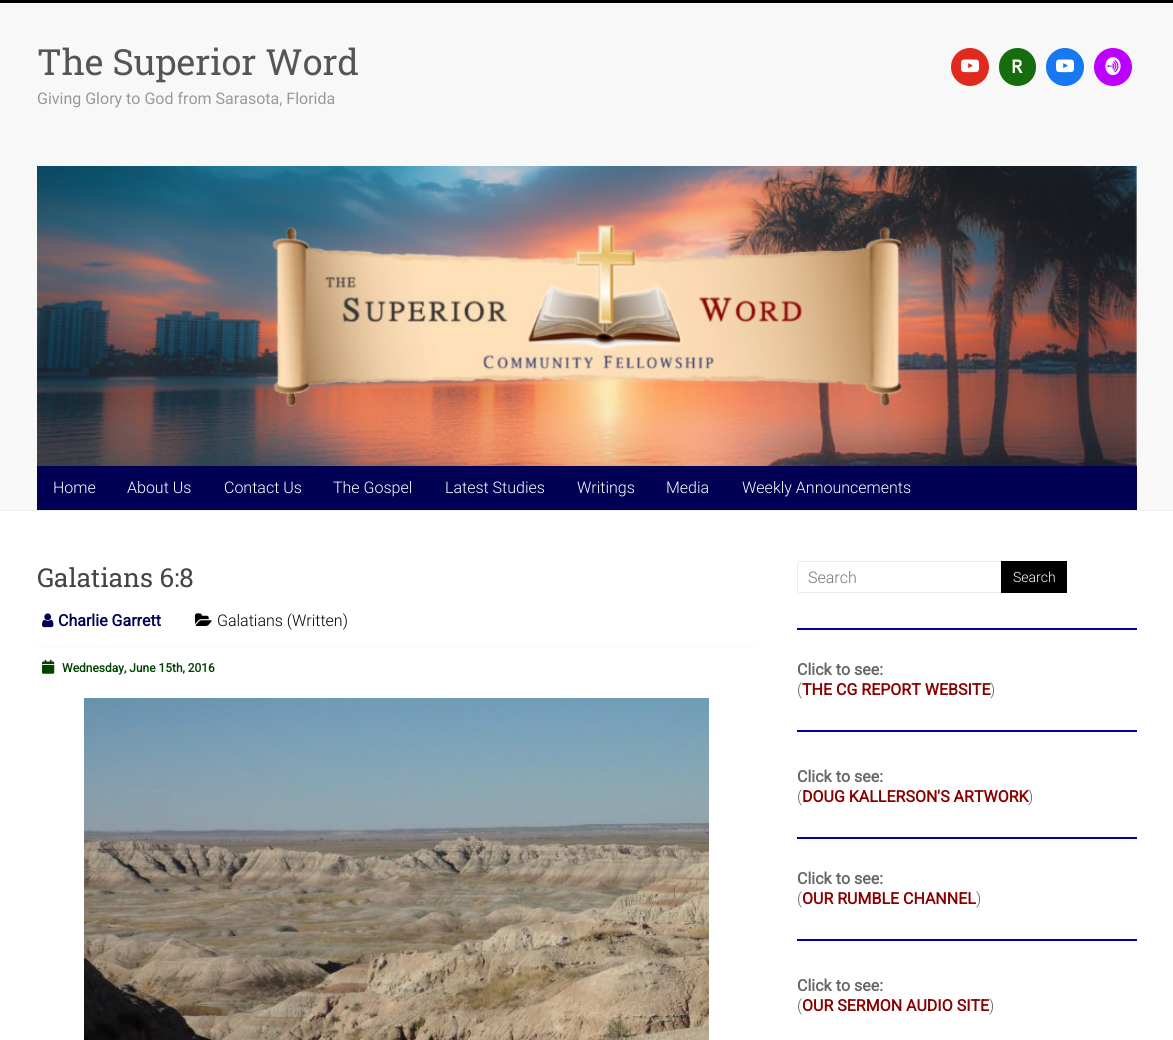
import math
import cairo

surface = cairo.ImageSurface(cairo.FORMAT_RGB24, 1173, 1040)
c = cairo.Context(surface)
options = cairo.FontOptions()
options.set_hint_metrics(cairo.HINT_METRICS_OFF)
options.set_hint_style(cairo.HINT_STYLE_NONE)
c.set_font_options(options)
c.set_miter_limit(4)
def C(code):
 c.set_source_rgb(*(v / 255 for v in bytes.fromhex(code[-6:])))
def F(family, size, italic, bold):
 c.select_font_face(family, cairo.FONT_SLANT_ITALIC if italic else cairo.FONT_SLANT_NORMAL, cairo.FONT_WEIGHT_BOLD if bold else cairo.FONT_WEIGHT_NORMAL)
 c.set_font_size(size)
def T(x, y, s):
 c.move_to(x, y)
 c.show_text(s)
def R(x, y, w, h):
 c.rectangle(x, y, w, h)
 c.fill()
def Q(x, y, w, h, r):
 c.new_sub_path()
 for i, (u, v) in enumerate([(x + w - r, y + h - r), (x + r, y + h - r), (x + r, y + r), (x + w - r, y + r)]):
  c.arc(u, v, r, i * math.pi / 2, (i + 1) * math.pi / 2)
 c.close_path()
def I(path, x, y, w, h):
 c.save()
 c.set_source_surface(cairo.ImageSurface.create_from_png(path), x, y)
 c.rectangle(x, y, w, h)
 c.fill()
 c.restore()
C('ffffff')
c.paint()
C('000000')
R(0,0,1173,3)
C('f8f8f8')
R(0,3,1173,507)
C('f2f2f2')
R(0,510,1173,1)
F('Roboto Slab',36,0,0)
C('555555')
T(37,75,'The Superior Word')
F('Roboto',16,0,0)
C('999999')
T(37,104,'Giving Glory to God from Sarasota, Florida')
C('e02a20')
c.new_path()
c.arc(970,67,19,0,2 * math.pi)
c.fill()
I('1.png',961,59,19,14)
C('166d0e')
Q(999,48,37,38,18.5)
c.fill()
I('2.png',1012,59,11,14)
C('1877f2')
c.arc(1065,67,19,0,2 * math.pi)
c.fill()
I('3.png',1056,59,19,14)
C('bb00ff')
c.arc(1113,67,19,0,2 * math.pi)
c.fill()
I('4.png',1105,57,16,19)
I('5.png',37,166,1100,300)
C('000055')
R(37,466,1100,44)
F('Roboto Light',16,0,0)
C('ffffff')
T(53,493,'Home')
T(127,493,'About Us')
T(224,493,'Contact Us')
T(333,493,'The Gospel')
T(445,493,'Latest Studies')
T(577,493,'Writings')
T(666,493,'Media')
T(742,493,'Weekly Announcements')
F('Roboto Slab',26,0,0)
C('444444')
T(37,587,'Galatians 6:8')
I('6.png',42,613,12,15)
F('Roboto',16,0,1)
C('000055')
T(58,626,'Charlie Garrett')
I('7.png',195,613,17,13)
F('Roboto Light',16,0,0)
C('000000')
T(217,626,'Galatians (Written)')
C('f8f8f8')
R(37,646,720,1)
I('8.png',42,659,13,15)
F('Roboto',12,0,1)
C('004400')
T(62,672,'Wednesday, June 15th, 2016')
I('9.png',84,698,625,342)
C('eaeaea')
c.set_fill_rule(cairo.FILL_RULE_EVEN_ODD)
c.new_path()
c.move_to(800,561)
c.line_to(1001,561)
c.line_to(1001,593)
c.line_to(800,593)
c.curve_to(798,593,797,592,797,590)
c.line_to(797,564)
c.curve_to(797,562,798,561,800,561)
c.close_path()
c.move_to(800,562)
c.line_to(1001,562)
c.line_to(1001,592)
c.line_to(800,592)
c.curve_to(799,592,798,591,798,590)
c.line_to(798,564)
c.curve_to(798,563,799,562,800,562)
c.close_path()
c.fill()
F('Roboto Light',16,0,0)
C('757575')
T(808,583,'Search')
C('000000')
R(1001,561,66,32)
F('Roboto Light',14,0,0)
C('ffffff')
T(1013,582,'Search')
C('0000aa')
R(797,628,340,2)
F('Roboto',16,0,1)
C('666666')
T(797,675,'Click to see:')
F('Roboto Light',16,0,0)
T(797,695,'(')
F('Roboto',16,0,1)
C('880000')
T(802,695,'THE CG REPORT WEBSITE')
F('Roboto Light',16,0,0)
C('666666')
T(990,695,')')
C('0000aa')
R(797,730,340,2)
F('Roboto',16,0,1)
C('666666')
T(797,782,'Click to see:')
F('Roboto Light',16,0,0)
T(797,802,'(')
F('Roboto',16,0,1)
C('880000')
T(802,802,'DOUG KALLERSON\'S ARTWORK')
F('Roboto Light',16,0,0)
C('666666')
T(1028,802,')')
C('0000aa')
R(797,837,340,2)
F('Roboto',16,0,1)
C('666666')
T(797,884,'Click to see:')
F('Roboto Light',16,0,0)
T(797,904,'(')
F('Roboto',16,0,1)
C('880000')
T(802,904,'OUR RUMBLE CHANNEL')
F('Roboto Light',16,0,0)
C('666666')
T(976,904,')')
C('0000aa')
R(797,939,340,2)
F('Roboto',16,0,1)
C('666666')
T(797,991,'Click to see:')
F('Roboto Light',16,0,0)
T(797,1011,'(')
F('Roboto',16,0,1)
C('880000')
T(802,1011,'OUR SERMON AUDIO SITE')
F('Roboto Light',16,0,0)
C('666666')
T(989,1011,')')
surface.write_to_png('o.png')
